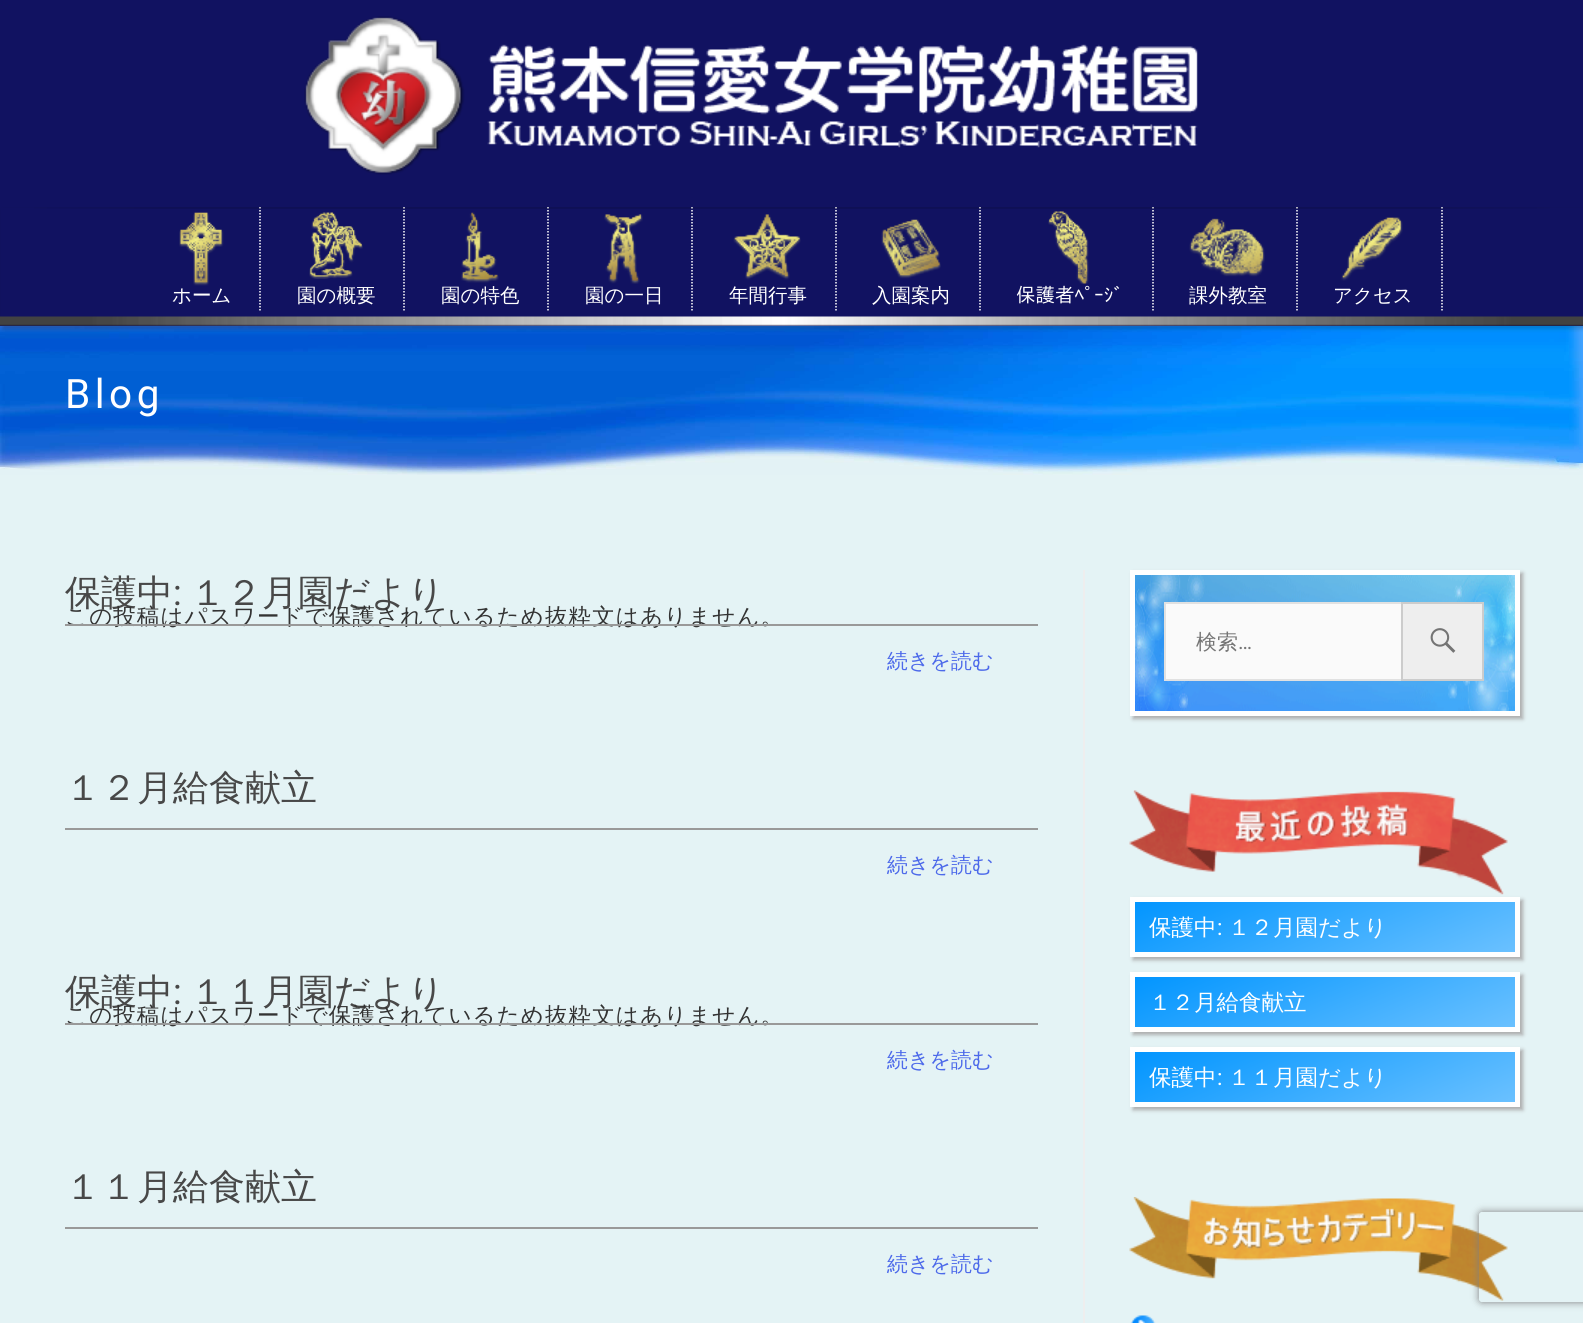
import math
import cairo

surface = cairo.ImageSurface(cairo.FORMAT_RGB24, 1583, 1323)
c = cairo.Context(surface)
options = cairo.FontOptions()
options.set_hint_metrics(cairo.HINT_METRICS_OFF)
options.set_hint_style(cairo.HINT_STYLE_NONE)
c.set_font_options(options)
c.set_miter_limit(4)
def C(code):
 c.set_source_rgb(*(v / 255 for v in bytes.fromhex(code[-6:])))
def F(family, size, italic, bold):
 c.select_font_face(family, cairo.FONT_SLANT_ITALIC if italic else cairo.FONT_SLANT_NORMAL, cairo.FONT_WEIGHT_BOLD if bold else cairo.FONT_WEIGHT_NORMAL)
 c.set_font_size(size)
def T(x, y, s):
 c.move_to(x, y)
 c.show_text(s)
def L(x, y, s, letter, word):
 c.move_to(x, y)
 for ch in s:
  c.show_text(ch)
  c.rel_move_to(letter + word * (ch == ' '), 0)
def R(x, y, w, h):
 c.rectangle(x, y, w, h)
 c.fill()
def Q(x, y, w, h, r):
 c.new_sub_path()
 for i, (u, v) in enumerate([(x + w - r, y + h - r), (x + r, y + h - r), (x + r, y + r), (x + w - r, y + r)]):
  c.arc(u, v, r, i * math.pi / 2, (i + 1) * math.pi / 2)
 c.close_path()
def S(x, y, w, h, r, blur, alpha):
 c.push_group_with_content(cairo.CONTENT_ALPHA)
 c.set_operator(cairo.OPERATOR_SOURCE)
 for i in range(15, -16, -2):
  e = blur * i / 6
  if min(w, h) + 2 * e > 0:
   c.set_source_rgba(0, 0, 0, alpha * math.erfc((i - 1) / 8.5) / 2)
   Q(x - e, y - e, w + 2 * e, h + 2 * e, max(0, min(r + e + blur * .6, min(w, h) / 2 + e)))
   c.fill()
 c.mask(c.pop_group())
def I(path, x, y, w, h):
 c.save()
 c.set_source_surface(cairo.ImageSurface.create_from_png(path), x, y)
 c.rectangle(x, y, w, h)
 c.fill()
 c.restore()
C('111261')
c.paint()
C('e4f3f5')
R(0,475,1583,848)
I('1.png',304,16,894,159)
I('12.png',0,326,1583,149)
C('000000')
S(3,210,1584,119,0,2,.18)
C('111261')
R(1,208,1582,118)
I('2.png',0,316,1583,10)
c.set_source_rgba(0,0,0,0.1)
R(0,324,1583,2)
c.new_path()
c.move_to(260,207)
c.line_to(260,312)
C('ffffff')
c.set_line_width(1.5)
c.set_dash([1.5,1.5])
c.stroke()
c.new_path()
c.move_to(404,207)
c.line_to(404,312)
c.stroke()
c.new_path()
c.move_to(548,207)
c.line_to(548,312)
c.stroke()
c.new_path()
c.move_to(692,207)
c.line_to(692,312)
c.stroke()
c.new_path()
c.move_to(836,207)
c.line_to(836,312)
c.stroke()
c.new_path()
c.move_to(980,207)
c.line_to(980,312)
c.stroke()
c.new_path()
c.move_to(1153,207)
c.line_to(1153,312)
c.stroke()
c.new_path()
c.move_to(1297,207)
c.line_to(1297,312)
c.stroke()
c.new_path()
c.move_to(1442,207)
c.line_to(1442,312)
c.stroke()
gradient = cairo.LinearGradient(0,208,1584,208)
gradient.add_color_stop_rgba(0,0,0,0,0)
gradient.add_color_stop_rgba(.1,0,0,0,.1)
gradient.add_color_stop_rgba(.9,0,0,0,.1)
gradient.add_color_stop_rgba(1,0,0,0,0)
c.set_source(gradient)
R(34,207,1516,2)
I('3.png',179,212,45,74)
F('WenQuanYi Zen Hei Medium',19.5,0,0)
C('ffffff')
T(172,302,'ホーム')
I('4.png',309,212,54,67)
T(297,302,'園の概要')
I('5.png',461,212,38,71)
T(441,302,'園の特色')
I('6.png',604,214,39,70)
T(585,302,'園の一日')
I('7.png',733,214,68,66)
T(729,302,'年間行事')
I('8.png',881,219,60,60)
T(872,302,'入園案内')
I('9.png',1048,211,41,73)
F('IPAPGothic',19.5,0,0)
T(1016,302,'保護者ﾍﾟｰｼﾞ')
I('10.png',1189,218,76,59)
F('WenQuanYi Zen Hei Medium',19.5,0,0)
T(1189,302,'課外教室')
I('11.png',1341,217,62,64)
T(1333,302,'アクセス')
F('Roboto',40.5,0,0)
L(65,408,'Blog',4.5,0)
F('WenQuanYi Zen Hei Medium',36,0,0)
C('484848')
T(65,605,'保護中')
F('Roboto',36,0,0)
T(173,605,':')
F('WenQuanYi Zen Hei Medium',36,0,0)
T(190,605,'１２月園だより')
F('WenQuanYi Zen Hei Medium',22.5,0,0)
C('333333')
L(65,624,'この投稿はパスワードで保護されているため抜粋文はありません。',1.1,0)
C('999999')
R(65,624,973,2)
F('WenQuanYi Zen Hei Medium',21,0,0)
C('4c69ea')
T(887,668,'続きを読む')
F('WenQuanYi Zen Hei Medium',36,0,0)
C('484848')
T(65,800,'１２月給食献立')
C('999999')
R(65,828,973,2)
F('WenQuanYi Zen Hei Medium',21,0,0)
C('4c69ea')
T(887,872,'続きを読む')
F('WenQuanYi Zen Hei Medium',36,0,0)
C('484848')
T(65,1004,'保護中')
F('Roboto',36,0,0)
T(173,1004,':')
F('WenQuanYi Zen Hei Medium',36,0,0)
T(190,1004,'１１月園だより')
F('WenQuanYi Zen Hei Medium',22.5,0,0)
C('333333')
L(65,1023,'この投稿はパスワードで保護されているため抜粋文はありません。',1.1,0)
C('999999')
R(65,1023,973,2)
F('WenQuanYi Zen Hei Medium',21,0,0)
C('4c69ea')
T(887,1067,'続きを読む')
F('WenQuanYi Zen Hei Medium',36,0,0)
C('484848')
T(65,1199,'１１月給食献立')
C('999999')
R(65,1227,973,2)
F('WenQuanYi Zen Hei Medium',21,0,0)
C('4c69ea')
T(887,1271,'続きを読む')
C('eeeeee')
R(1083,570,2,753)
C('acacac')
S(1133,573,390,146,0,2,1)
I('13.png',1135,575,380,136)
c.rectangle(1132.5,572.5,385,141)
C('ffffff')
c.set_line_width(5)
c.set_dash([])
c.stroke()
C('fafafa')
c.rectangle(1165,603,237,77)
c.fill_preserve()
C('e1e1e1')
c.set_line_width(2)
c.stroke()
C('757575')
T(1196,649,'検索')
F('Roboto',21,0,0)
T(1238,649,'…')
C('eeeeee')
c.rectangle(1402,603,81,77)
c.fill_preserve()
C('cccccc')
c.stroke()
I('14.png',1430,628,26,25)
I('15.png',1129,790,379,105)
C('acacac')
S(1133,900,390,60,0,2,1)
gradient = cairo.LinearGradient(1284,835,1365,1019)
gradient.add_color_stop_rgba(0,0.004,0.584,1,1)
gradient.add_color_stop_rgba(1,0.42,0.757,1,1)
c.set_source(gradient)
R(1135,902,380,50)
c.rectangle(1132.5,899.5,385,55)
C('ffffff')
c.set_line_width(5)
c.stroke()
F('WenQuanYi Zen Hei Medium',22.5,0,0)
T(1149,935,'保護中')
F('Roboto',22.5,0,0)
T(1217,935,':')
F('WenQuanYi Zen Hei Medium',22.5,0,0)
T(1228,935,'１２月園だより')
C('acacac')
S(1133,975,390,60,0,2,1)
gradient = cairo.LinearGradient(1284,910,1365,1094)
gradient.add_color_stop_rgba(0,0.004,0.584,1,1)
gradient.add_color_stop_rgba(1,0.42,0.757,1,1)
c.set_source(gradient)
R(1135,977,380,50)
c.rectangle(1132.5,974.5,385,55)
C('ffffff')
c.stroke()
T(1149,1010,'１２月給食献立')
C('acacac')
S(1133,1050,390,60,0,2,1)
gradient = cairo.LinearGradient(1284,985,1365,1169)
gradient.add_color_stop_rgba(0,0.004,0.584,1,1)
gradient.add_color_stop_rgba(1,0.42,0.757,1,1)
c.set_source(gradient)
R(1135,1052,380,50)
c.rectangle(1132.5,1049.5,385,55)
C('ffffff')
c.stroke()
T(1149,1085,'保護中')
F('Roboto',22.5,0,0)
T(1217,1085,':')
F('WenQuanYi Zen Hei Medium',22.5,0,0)
T(1228,1085,'１１月園だより')
I('16.png',1129,1197,379,104)
I('17.png',1130,1315,26,8)
c.save()
c.set_fill_rule(cairo.FILL_RULE_EVEN_ODD)
c.new_path()
c.move_to(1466,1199)
c.line_to(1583,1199)
c.line_to(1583,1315)
c.line_to(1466,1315)
c.close_path()
c.move_to(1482,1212)
c.line_to(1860,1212)
c.curve_to(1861.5,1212,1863,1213.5,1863,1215)
c.line_to(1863,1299)
c.curve_to(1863,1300.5,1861.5,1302,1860,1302)
c.line_to(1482,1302)
c.curve_to(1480.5,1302,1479,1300.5,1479,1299)
c.line_to(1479,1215)
c.curve_to(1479,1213.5,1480.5,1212,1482,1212)
c.close_path()
c.clip()
C('808080')
S(1479,1212,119,90,3,4,1)
c.restore()
surface.write_to_png('o.png')
